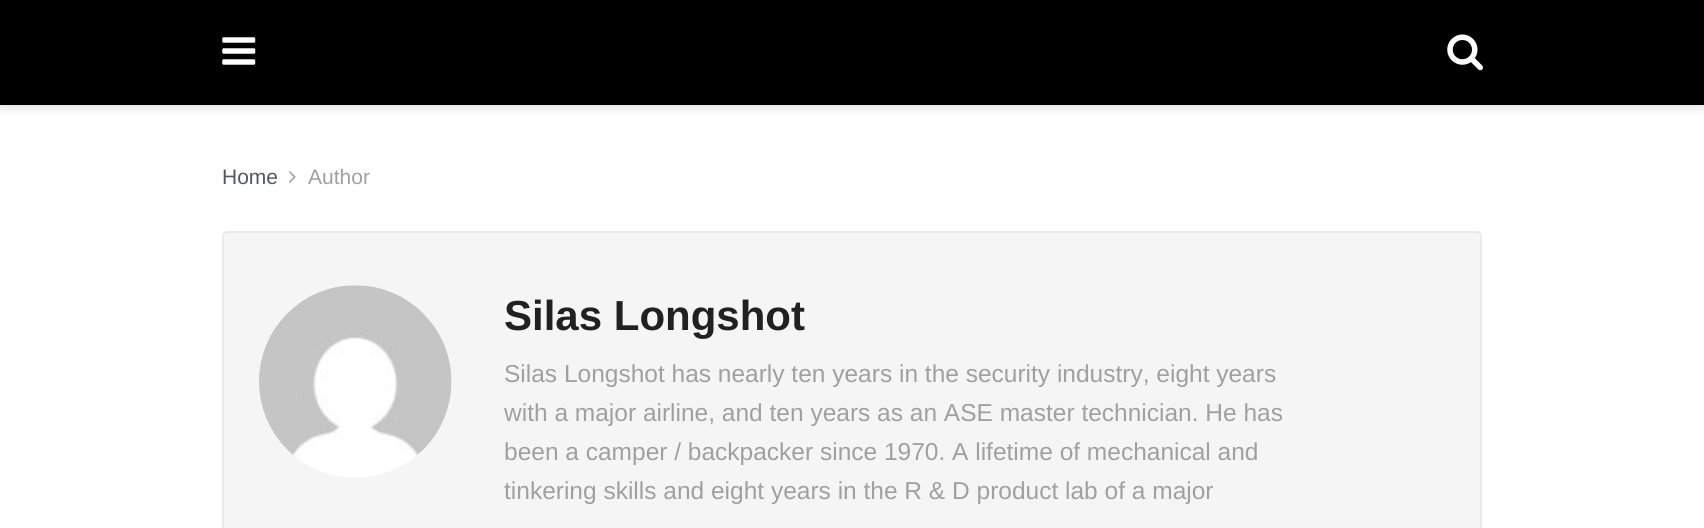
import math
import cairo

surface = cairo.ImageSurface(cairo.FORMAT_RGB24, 1704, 528)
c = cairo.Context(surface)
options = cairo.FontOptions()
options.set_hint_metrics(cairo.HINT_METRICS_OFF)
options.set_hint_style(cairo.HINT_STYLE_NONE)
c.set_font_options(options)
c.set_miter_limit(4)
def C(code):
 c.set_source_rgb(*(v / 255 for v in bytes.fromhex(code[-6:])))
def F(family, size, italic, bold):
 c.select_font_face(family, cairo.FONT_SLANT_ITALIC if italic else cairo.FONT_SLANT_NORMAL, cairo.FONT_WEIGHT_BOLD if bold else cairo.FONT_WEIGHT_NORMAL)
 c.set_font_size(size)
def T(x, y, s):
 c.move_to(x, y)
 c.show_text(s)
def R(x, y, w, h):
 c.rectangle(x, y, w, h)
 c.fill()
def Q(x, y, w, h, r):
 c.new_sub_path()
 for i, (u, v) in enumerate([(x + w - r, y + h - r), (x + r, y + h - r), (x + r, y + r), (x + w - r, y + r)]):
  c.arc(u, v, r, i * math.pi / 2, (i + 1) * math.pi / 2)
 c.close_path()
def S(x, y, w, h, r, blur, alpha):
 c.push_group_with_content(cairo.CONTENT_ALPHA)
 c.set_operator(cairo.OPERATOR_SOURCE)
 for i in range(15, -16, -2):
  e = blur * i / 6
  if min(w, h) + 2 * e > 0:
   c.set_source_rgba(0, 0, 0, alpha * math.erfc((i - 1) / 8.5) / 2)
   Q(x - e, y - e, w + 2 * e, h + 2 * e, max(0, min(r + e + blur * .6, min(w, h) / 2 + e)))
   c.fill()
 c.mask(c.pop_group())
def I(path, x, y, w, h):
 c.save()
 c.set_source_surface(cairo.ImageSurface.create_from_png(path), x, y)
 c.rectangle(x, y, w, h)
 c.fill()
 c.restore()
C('ffffff')
c.paint()
C('000000')
S(0,4,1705,105,0,5,.1)
C('000000')
R(0,0,1704,105)
I('1.png',222,37,34,28)
I('2.png',1447,34,36,37)
F('Liberation Sans',21,0,0)
C('53585c')
T(222,184,'Home')
I('3.png',289,171,7,12)
C('a0a0a0')
T(308,184,'Author')
C('f5f5f5')
Q(223,232,1258,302,4)
c.fill_preserve()
C('eaeaea')
c.stroke()
I('4.png',259,285,193,193)
F('Liberation Sans',42,0,1)
C('212121')
T(504,330,'Silas Longshot')
F('Liberation Sans',24.5,0,0)
C('a0a0a0')
T(504,382,'Silas Longshot has nearly ten years in the security industry, eight years')
T(504,421,'with a major airline, and ten years as an ASE master technician. He has')
T(504,460,'been a camper / backpacker since 1970. A lifetime of mechanical and')
T(504,499,'tinkering skills and eight years in the R & D product lab of a major')
surface.write_to_png('o.png')
